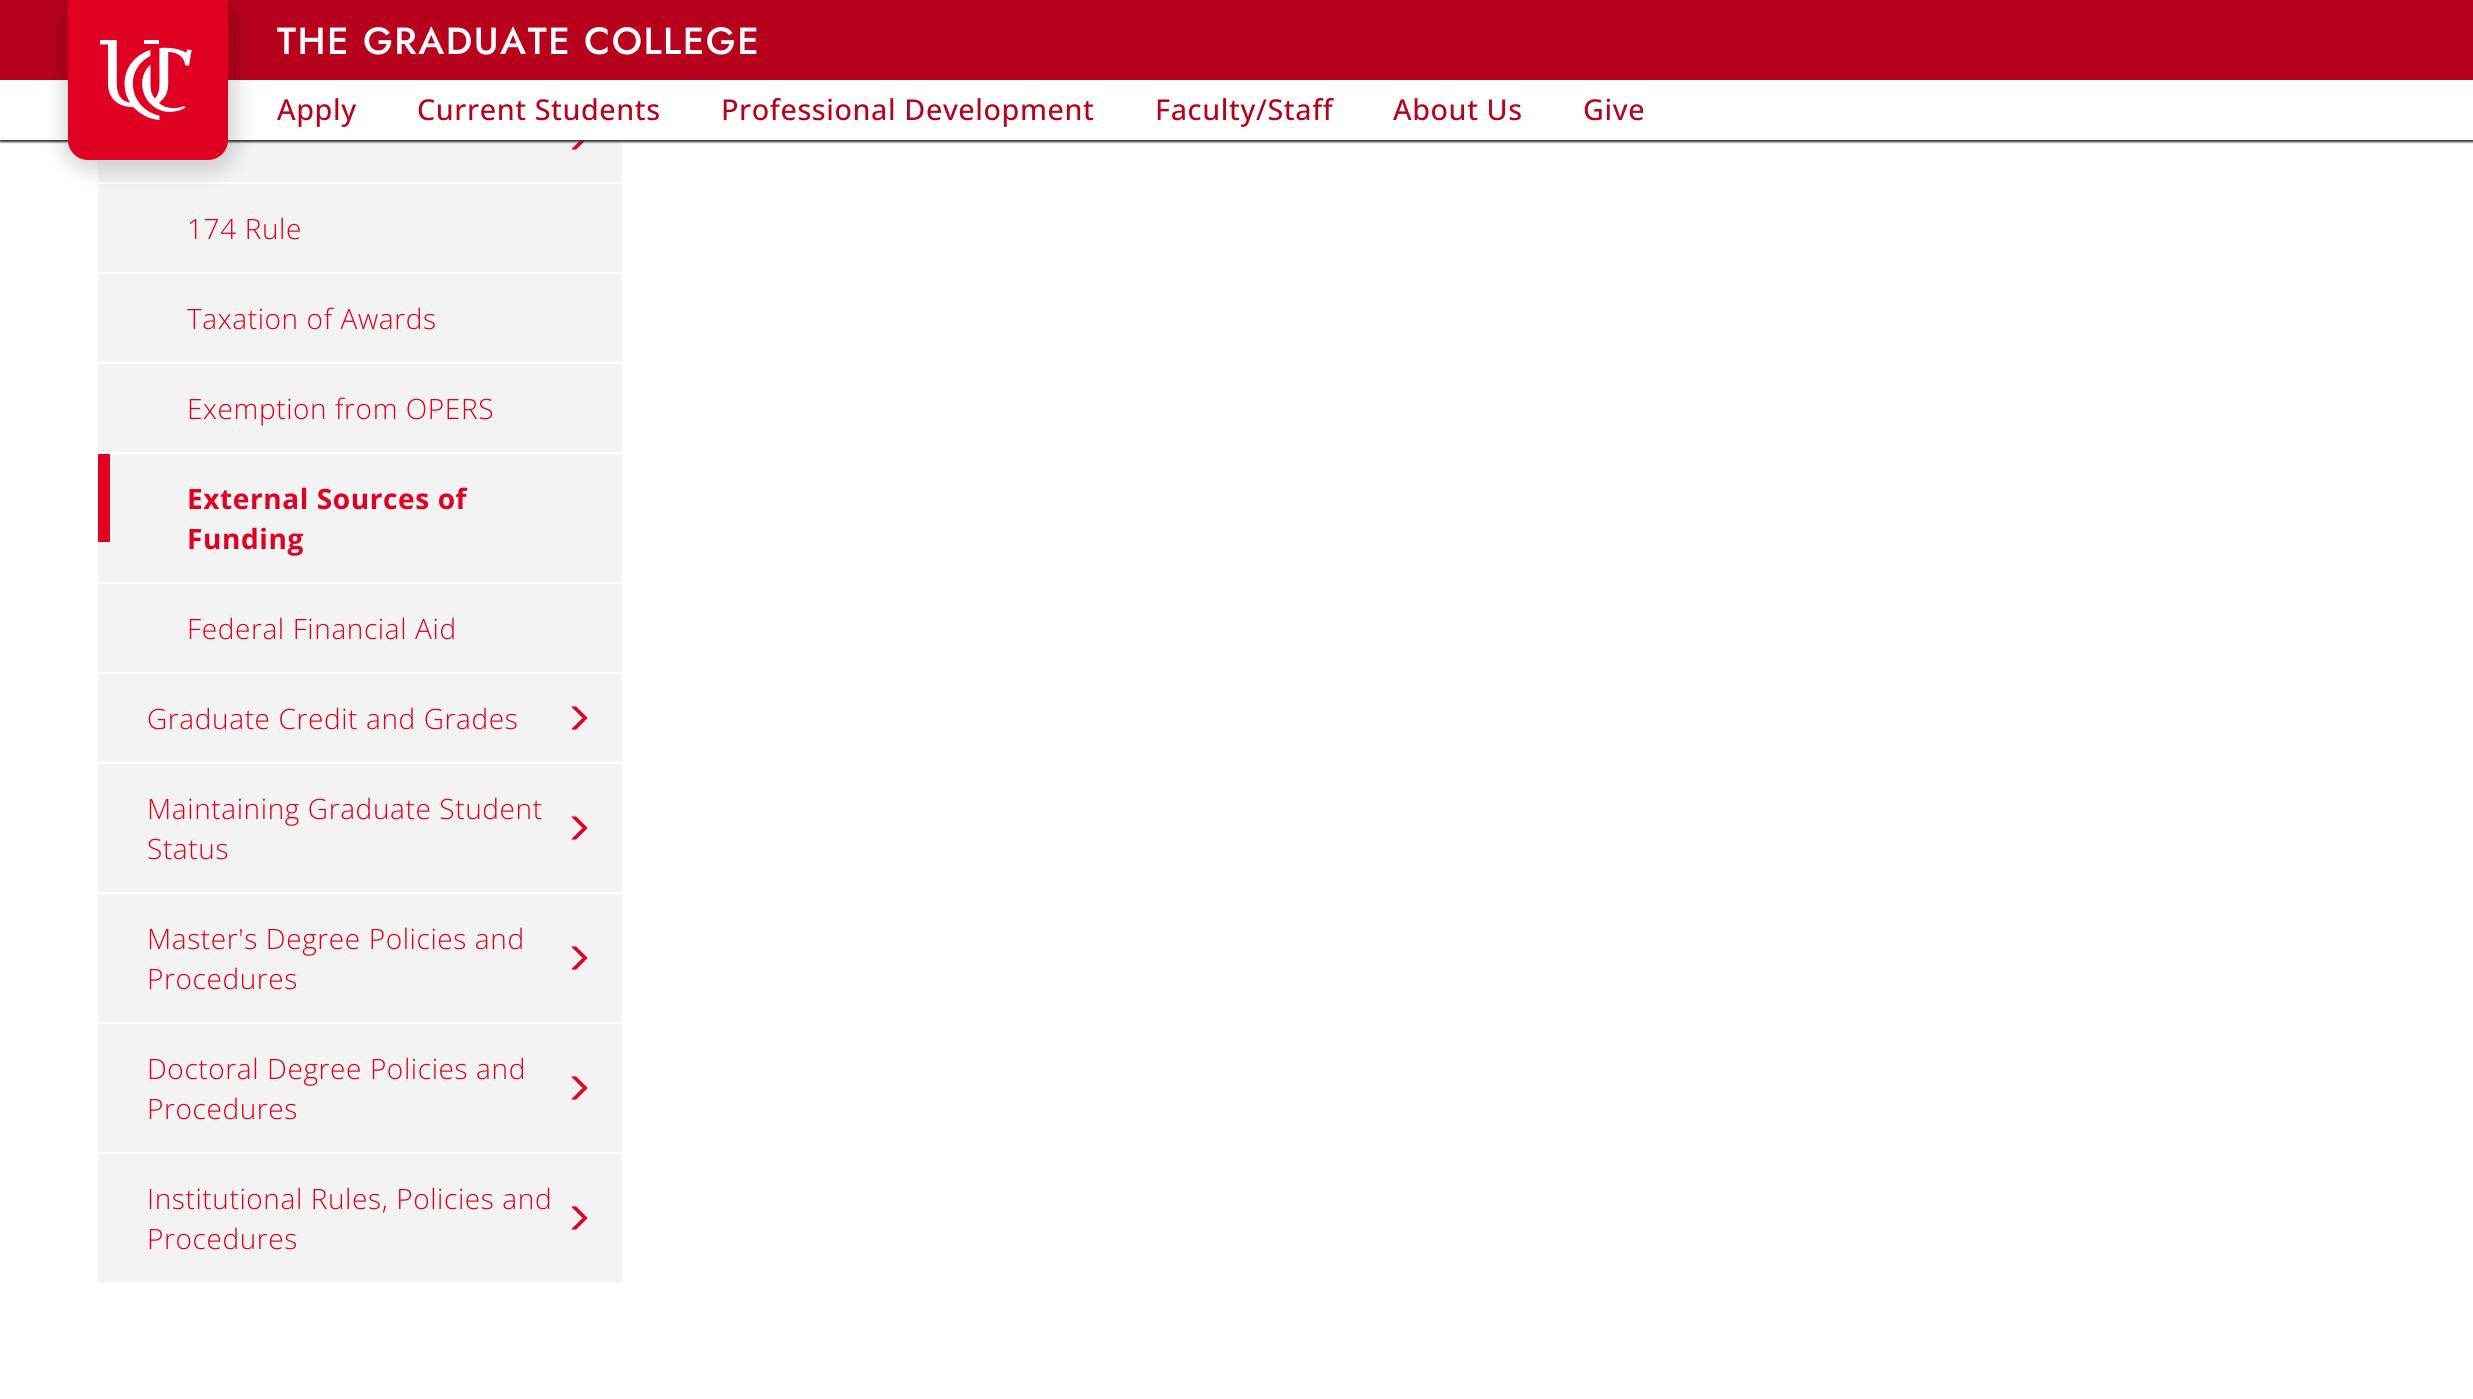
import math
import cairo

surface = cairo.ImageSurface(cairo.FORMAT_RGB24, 2473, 1399)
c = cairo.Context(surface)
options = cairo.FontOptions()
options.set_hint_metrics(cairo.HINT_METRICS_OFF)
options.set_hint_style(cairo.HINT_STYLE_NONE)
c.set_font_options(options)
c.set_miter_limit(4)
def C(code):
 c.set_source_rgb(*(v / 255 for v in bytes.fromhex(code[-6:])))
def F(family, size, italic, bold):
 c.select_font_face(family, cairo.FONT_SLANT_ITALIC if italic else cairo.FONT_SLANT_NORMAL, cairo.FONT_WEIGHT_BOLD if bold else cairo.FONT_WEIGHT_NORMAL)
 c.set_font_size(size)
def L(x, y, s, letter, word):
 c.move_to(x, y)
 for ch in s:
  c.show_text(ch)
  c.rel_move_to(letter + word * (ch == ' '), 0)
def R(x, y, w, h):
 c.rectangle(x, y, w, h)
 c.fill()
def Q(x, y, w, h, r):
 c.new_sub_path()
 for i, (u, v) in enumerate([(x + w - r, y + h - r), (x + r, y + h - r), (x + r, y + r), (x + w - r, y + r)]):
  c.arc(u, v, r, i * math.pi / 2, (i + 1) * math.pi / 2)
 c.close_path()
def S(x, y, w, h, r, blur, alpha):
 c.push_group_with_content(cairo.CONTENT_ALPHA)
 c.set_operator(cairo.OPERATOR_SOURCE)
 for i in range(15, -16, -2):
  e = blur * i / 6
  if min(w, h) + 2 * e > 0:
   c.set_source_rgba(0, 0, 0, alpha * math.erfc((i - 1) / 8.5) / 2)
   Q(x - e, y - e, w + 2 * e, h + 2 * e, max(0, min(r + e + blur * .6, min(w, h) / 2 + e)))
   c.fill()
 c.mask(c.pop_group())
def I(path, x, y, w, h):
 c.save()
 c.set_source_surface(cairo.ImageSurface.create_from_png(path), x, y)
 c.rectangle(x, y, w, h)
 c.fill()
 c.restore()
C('ffffff')
c.paint()
C('b8011c')
R(0,0,2473,80)
C('f3f3f3')
R(98,140,524,1142)
I('2.png',571,140,15,10)
C('333333')
S(0,82,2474,60,0,1,1)
C('ffffff')
R(0,80,2473,60)
R(98,182,524,2)
C('000000')
S(62,-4,176,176,28,10,.15)
C('e00122')
c.new_path()
c.move_to(68,0)
c.line_to(228,0)
c.line_to(228,140)
c.curve_to(228,151,219,160,208,160)
c.line_to(88,160)
c.curve_to(77,160,68,151,68,140)
c.close_path()
c.fill()
I('1.png',100,40,92,80)
F('Jost Medium',37.75,0,0)
C('ffffff')
L(277,54,'THE GRADUATE COLLEGE',1.5,0)
F('Open Sans Medium',28.75,0,0)
C('b8011c')
L(277,120,'Apply',.6,0)
L(417,120,'Current Students',.6,0)
L(721,120,'Professional Development',.6,0)
L(1155,120,'Faculty/Staff',.6,0)
L(1393,120,'About Us',.6,0)
L(1583,120,'Give',.6,0)
C('ffffff')
R(98,272,524,2)
F('Open Sans Light',28,0,0)
C('e00122')
L(187,239,'174 Rule',.6,0)
C('ffffff')
R(98,362,524,2)
C('e00122')
L(187,329,'Taxation of Awards',.6,0)
C('ffffff')
R(98,452,524,2)
C('e00122')
L(187,419,'Exemption from OPERS',.6,0)
C('ffffff')
R(98,582,524,2)
C('e00122')
R(98,454,12,88)
F('Open Sans',28,0,1)
L(187,509,'External Sources of',.6,0)
L(187,549,'Funding',.6,0)
C('ffffff')
R(98,672,524,2)
F('Open Sans Light',28,0,0)
C('e00122')
L(187,639,'Federal Financial Aid',.6,0)
C('ffffff')
R(98,762,524,2)
C('e00122')
L(147,729,'Graduate Credit and Grades',.6,0)
I('3.png',571,706,17,24)
C('ffffff')
R(98,892,524,2)
C('e00122')
L(147,819,'Maintaining Graduate Student',.6,0)
I('3.png',571,816,17,24)
L(147,859,'Status',.6,0)
C('ffffff')
R(98,1022,524,2)
C('e00122')
L(147,949,'Master\'s Degree Policies and',.6,0)
I('3.png',571,946,17,24)
L(147,989,'Procedures',.6,0)
C('ffffff')
R(98,1152,524,2)
C('e00122')
L(147,1079,'Doctoral Degree Policies and',.6,0)
I('3.png',571,1076,17,24)
L(147,1119,'Procedures',.6,0)
L(147,1209,'Institutional Rules, Policies and',.6,0)
I('3.png',571,1206,17,24)
L(147,1249,'Procedures',.6,0)
surface.write_to_png('o.png')
